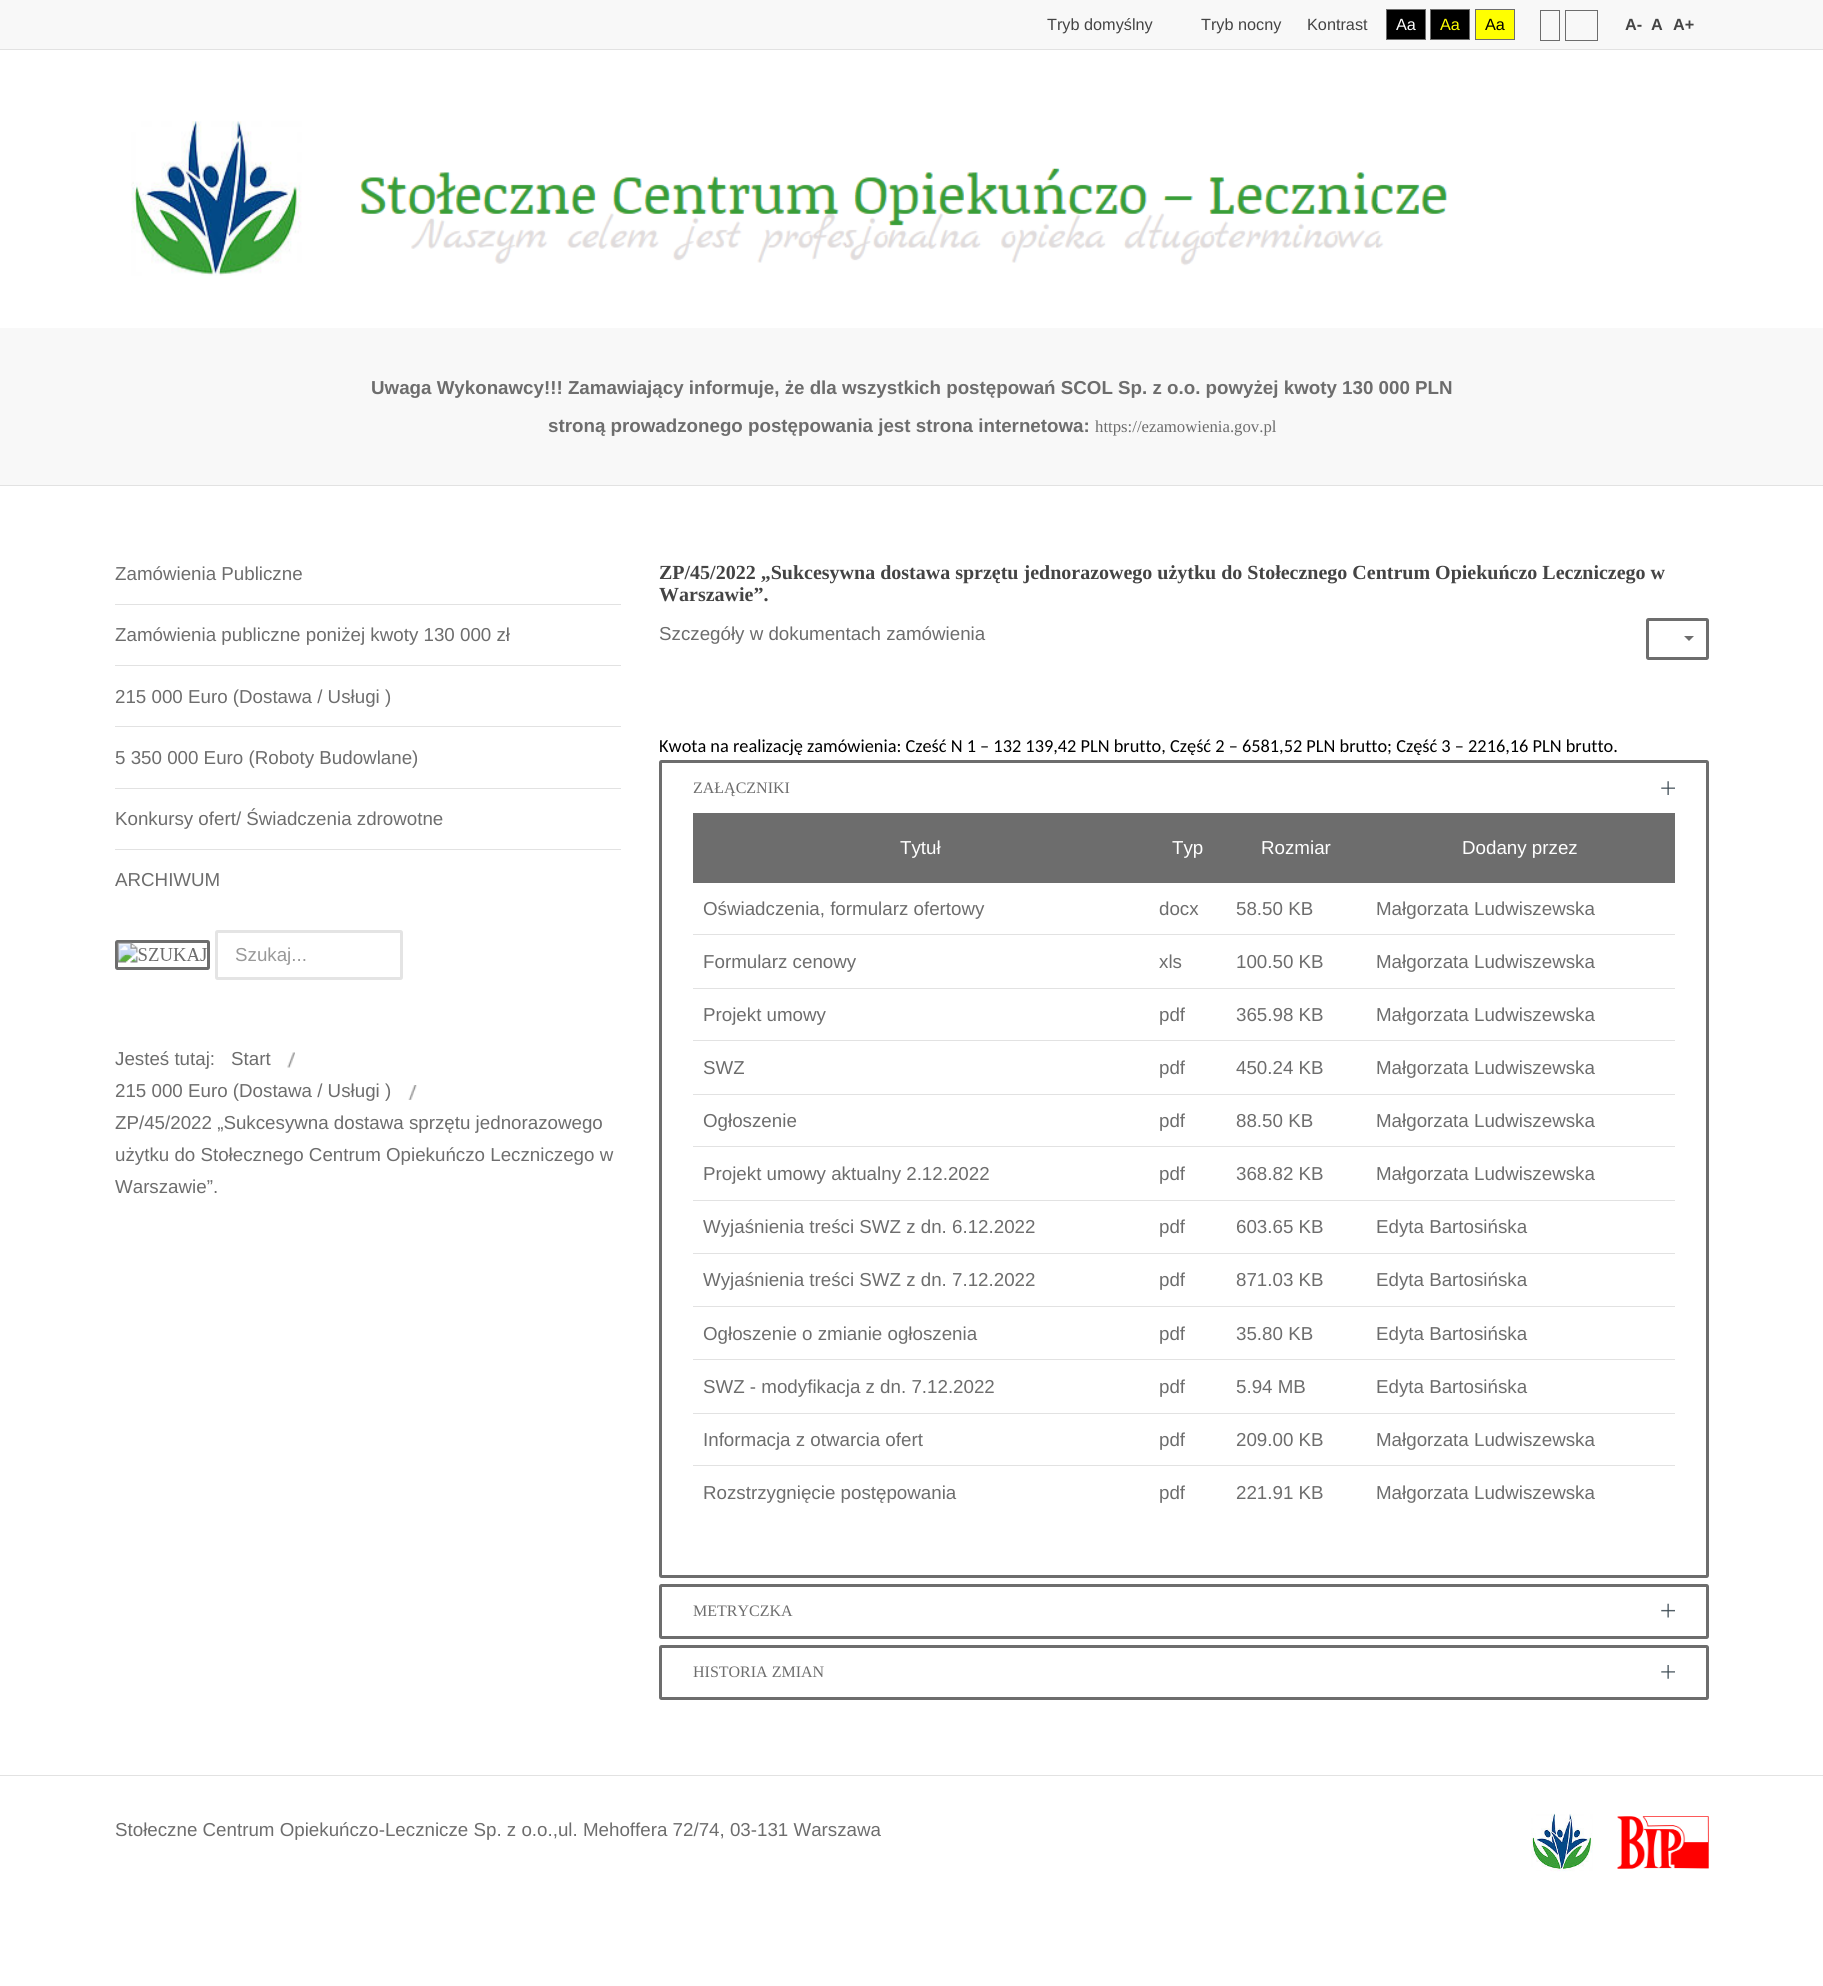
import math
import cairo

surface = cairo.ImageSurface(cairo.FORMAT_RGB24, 1823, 1986)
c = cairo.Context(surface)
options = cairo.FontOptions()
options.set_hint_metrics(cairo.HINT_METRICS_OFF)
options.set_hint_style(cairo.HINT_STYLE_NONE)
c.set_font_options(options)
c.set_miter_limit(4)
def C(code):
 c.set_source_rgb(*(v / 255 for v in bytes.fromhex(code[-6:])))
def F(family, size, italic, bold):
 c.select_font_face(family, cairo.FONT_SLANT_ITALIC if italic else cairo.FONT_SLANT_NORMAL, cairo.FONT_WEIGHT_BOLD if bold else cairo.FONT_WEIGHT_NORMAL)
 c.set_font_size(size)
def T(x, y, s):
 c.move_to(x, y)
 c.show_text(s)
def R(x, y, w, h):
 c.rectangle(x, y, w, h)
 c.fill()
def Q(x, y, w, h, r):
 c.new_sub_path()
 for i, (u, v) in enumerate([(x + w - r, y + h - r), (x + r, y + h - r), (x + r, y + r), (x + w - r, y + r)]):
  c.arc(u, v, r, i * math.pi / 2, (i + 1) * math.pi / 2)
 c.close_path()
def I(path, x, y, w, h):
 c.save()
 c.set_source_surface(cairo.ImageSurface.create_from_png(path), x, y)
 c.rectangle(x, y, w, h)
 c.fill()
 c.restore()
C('ffffff')
c.paint()
C('f8f8f8')
R(0,0,1823,49)
C('e2e2e2')
R(0,49,1823,1)
F('Liberation Sans',16.25,0,0)
C('444444')
T(1047,30,'Tryb domyślny')
T(1201,30,'Tryb nocny')
T(1307,30,'Kontrast')
C('000000')
c.rectangle(1386.5,9.5,39,30)
c.fill_preserve()
C('6d6d6d')
c.set_line_width(1)
c.stroke()
C('ffffff')
T(1396,30,'Aa')
C('000000')
c.rectangle(1430.5,9.5,39,30)
c.fill_preserve()
C('6d6d6d')
c.stroke()
C('ffff00')
T(1440,30,'Aa')
c.rectangle(1475.5,9.5,39,30)
c.fill_preserve()
C('6d6d6d')
c.stroke()
C('000000')
T(1485,30,'Aa')
c.rectangle(1540.5,10.5,19,30)
C('6d6d6d')
c.stroke()
c.rectangle(1565.5,10.5,32,30)
c.stroke()
F('Liberation Sans',16.25,0,1)
C('444444')
T(1625,30,'A-')
T(1651,30,'A')
T(1673,30,'A+')
I('1.png',131,121,1316,155)
C('f8f8f8')
R(0,328,1823,157)
F('Liberation Sans',18.75,0,1)
C('6d6d6d')
T(371,394,'Uwaga Wykonawcy!!! Zamawiający informuje, że dla wszystkich postępowań SCOL Sp. z o.o. powyżej kwoty 130 000 PLN')
T(548,432,'stroną prowadzonego postępowania jest strona internetowa:')
F('Liberation Serif',16.75,0,0)
T(1095,432,'https://ezamowienia.gov.pl')
C('e2e2e2')
R(0,485,1823,1)
F('Liberation Sans',18.75,0,0)
C('6d6d6d')
T(115,580,'Zamówienia Publiczne')
C('e2e2e2')
R(115,604,506,1)
C('6d6d6d')
T(115,641,'Zamówienia publiczne poniżej kwoty 130 000 zł')
C('e2e2e2')
R(115,665,506,1)
C('6d6d6d')
T(115,703,'215 000 Euro (Dostawa / Usługi )')
C('e2e2e2')
R(115,726,506,1)
C('6d6d6d')
T(115,764,'5 350 000 Euro (Roboty Budowlane)')
C('e2e2e2')
R(115,788,506,1)
C('6d6d6d')
T(115,825,'Konkursy ofert/ Świadczenia zdrowotne')
C('e2e2e2')
R(115,849,506,1)
C('6d6d6d')
T(115,886,'ARCHIWUM')
Q(116.5,941.5,92,27,1)
c.set_line_width(3)
c.stroke()
I('2.png',117,942,90,21)
Q(216.5,931.5,185,47,1)
C('e4e4e4')
c.stroke()
C('999999')
T(235,961,'Szukaj...')
C('6d6d6d')
T(115,1065,'Jesteś tutaj:')
T(231,1065,'Start')
I('3.png',287,1052,8,16)
T(115,1097,'215 000 Euro (Dostawa / Usługi )')
I('4.png',408,1085,9,15)
T(115,1129,'ZP/45/2022 „Sukcesywna dostawa sprzętu jednorazowego')
T(115,1161,'użytku do Stołecznego Centrum Opiekuńczo Leczniczego w')
T(115,1193,'Warszawie”.')
F('Liberation Serif',20,0,1)
C('444444')
T(659,579,'ZP/45/2022 „Sukcesywna dostawa sprzętu jednorazowego użytku do Stołecznego Centrum Opiekuńczo Leczniczego w')
T(659,601,'Warszawie”.')
F('Liberation Sans',18.75,0,0)
C('6d6d6d')
T(659,640,'Szczegóły w dokumentach zamówienia')
F('Carlito',18.33,0,0)
C('000000')
T(659,752,'Kwota na realizację zamówienia: Cześć N 1 – 132 139,42 PLN brutto, Część 2 – 6581,52 PLN brutto; Część 3 – 2216,16 PLN brutto.')
Q(1647.5,619.5,60,39,1)
C('6d6d6d')
c.stroke()
c.new_path()
c.move_to(1684,636)
c.line_to(1694,636)
c.line_to(1689,641)
c.close_path()
c.fill()
Q(660.5,761.5,1047,815,1)
c.stroke()
F('Liberation Serif',16,0,0)
T(693,793,'ZAŁĄCZNIKI')
I('5.png',1661,781,14,14)
R(693,813,982,70)
F('Liberation Sans',18.75,0,0)
C('ffffff')
T(900,854,'Tytuł')
T(1172,854,'Typ')
T(1261,854,'Rozmiar')
T(1462,854,'Dodany przez')
C('6d6d6d')
T(703,915,'Oświadczenia, formularz ofertowy')
T(1159,915,'docx')
T(1236,915,'58.50 KB')
T(1376,915,'Małgorzata Ludwiszewska')
C('e2e2e2')
R(693,934,982,1)
C('6d6d6d')
T(703,968,'Formularz cenowy')
T(1159,968,'xls')
T(1236,968,'100.50 KB')
T(1376,968,'Małgorzata Ludwiszewska')
C('e2e2e2')
R(693,988,982,1)
C('6d6d6d')
T(703,1021,'Projekt umowy')
T(1159,1021,'pdf')
T(1236,1021,'365.98 KB')
T(1376,1021,'Małgorzata Ludwiszewska')
C('e2e2e2')
R(693,1040,982,1)
C('6d6d6d')
T(703,1074,'SWZ')
T(1159,1074,'pdf')
T(1236,1074,'450.24 KB')
T(1376,1074,'Małgorzata Ludwiszewska')
C('e2e2e2')
R(693,1094,982,1)
C('6d6d6d')
T(703,1127,'Ogłoszenie')
T(1159,1127,'pdf')
T(1236,1127,'88.50 KB')
T(1376,1127,'Małgorzata Ludwiszewska')
C('e2e2e2')
R(693,1146,982,1)
C('6d6d6d')
T(703,1180,'Projekt umowy aktualny 2.12.2022')
T(1159,1180,'pdf')
T(1236,1180,'368.82 KB')
T(1376,1180,'Małgorzata Ludwiszewska')
C('e2e2e2')
R(693,1200,982,1)
C('6d6d6d')
T(703,1233,'Wyjaśnienia treści SWZ z dn. 6.12.2022')
T(1159,1233,'pdf')
T(1236,1233,'603.65 KB')
T(1376,1233,'Edyta Bartosińska')
C('e2e2e2')
R(693,1253,982,1)
C('6d6d6d')
T(703,1286,'Wyjaśnienia treści SWZ z dn. 7.12.2022')
T(1159,1286,'pdf')
T(1236,1286,'871.03 KB')
T(1376,1286,'Edyta Bartosińska')
C('e2e2e2')
R(693,1306,982,1)
C('6d6d6d')
T(703,1340,'Ogłoszenie o zmianie ogłoszenia')
T(1159,1340,'pdf')
T(1236,1340,'35.80 KB')
T(1376,1340,'Edyta Bartosińska')
C('e2e2e2')
R(693,1359,982,1)
C('6d6d6d')
T(703,1393,'SWZ - modyfikacja z dn. 7.12.2022')
T(1159,1393,'pdf')
T(1236,1393,'5.94 MB')
T(1376,1393,'Edyta Bartosińska')
C('e2e2e2')
R(693,1413,982,1)
C('6d6d6d')
T(703,1446,'Informacja z otwarcia ofert')
T(1159,1446,'pdf')
T(1236,1446,'209.00 KB')
T(1376,1446,'Małgorzata Ludwiszewska')
C('e2e2e2')
R(693,1465,982,1)
C('6d6d6d')
T(703,1499,'Rozstrzygnięcie postępowania')
T(1159,1499,'pdf')
T(1236,1499,'221.91 KB')
T(1376,1499,'Małgorzata Ludwiszewska')
Q(660.5,1585.5,1047,52,1)
c.stroke()
F('Liberation Serif',16,0,0)
T(693,1616,'METRYCZKA')
I('6.png',1661,1603,14,15)
Q(660.5,1646.5,1047,52,1)
c.stroke()
T(693,1677,'HISTORIA ZMIAN')
I('7.png',1661,1665,14,14)
C('e2e2e2')
R(0,1775,1823,1)
F('Liberation Sans',18.75,0,0)
C('6d6d6d')
T(115,1836,'Stołeczne Centrum Opiekuńczo-Lecznicze Sp. z o.o.,ul. Mehoffera 72/74, 03-131 Warszawa')
I('8.png',1531,1813,62,59)
I('9.png',1617,1816,92,53)
surface.write_to_png('o.png')
